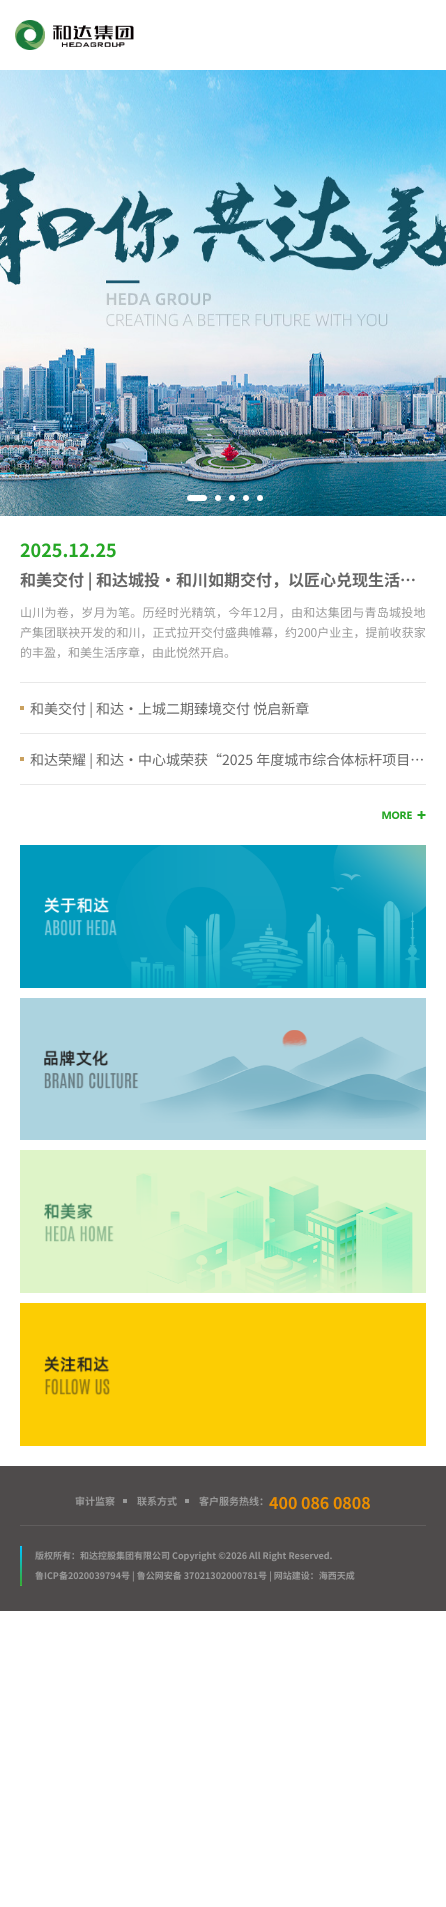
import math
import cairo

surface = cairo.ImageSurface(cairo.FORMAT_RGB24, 446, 1907)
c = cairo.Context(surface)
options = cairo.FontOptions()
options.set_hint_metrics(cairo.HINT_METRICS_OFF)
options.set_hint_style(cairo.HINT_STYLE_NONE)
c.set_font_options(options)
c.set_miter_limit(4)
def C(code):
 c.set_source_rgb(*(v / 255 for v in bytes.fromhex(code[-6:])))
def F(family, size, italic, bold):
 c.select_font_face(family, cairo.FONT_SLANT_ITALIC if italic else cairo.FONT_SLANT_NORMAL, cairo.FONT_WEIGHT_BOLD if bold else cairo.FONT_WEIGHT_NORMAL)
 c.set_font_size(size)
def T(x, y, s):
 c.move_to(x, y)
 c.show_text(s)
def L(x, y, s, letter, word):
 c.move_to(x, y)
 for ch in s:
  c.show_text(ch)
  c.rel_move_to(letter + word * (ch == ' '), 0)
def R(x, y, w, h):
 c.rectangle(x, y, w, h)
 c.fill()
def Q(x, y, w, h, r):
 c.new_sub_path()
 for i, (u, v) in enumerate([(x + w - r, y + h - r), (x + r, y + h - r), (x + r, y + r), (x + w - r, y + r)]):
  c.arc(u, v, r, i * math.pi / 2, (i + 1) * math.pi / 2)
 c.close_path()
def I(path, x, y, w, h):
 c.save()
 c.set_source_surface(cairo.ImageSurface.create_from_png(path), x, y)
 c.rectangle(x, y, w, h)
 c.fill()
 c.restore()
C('ffffff')
c.paint()
I('1.png',15,20,119,30)
I('2.png',0,70,446,446)
C('ffffff')
Q(187,495,20,6,3)
c.fill()
c.arc(218,498,3,0,2 * math.pi)
c.fill()
c.arc(232,498,3,0,2 * math.pi)
c.fill()
c.arc(246,498,3,0,2 * math.pi)
c.fill()
c.arc(260,498,3,0,2 * math.pi)
c.fill()
F('Noto Sans SC',18,0,1)
C('25a725')
T(20,557,'2025.12.25')
F('Noto Sans SC',16,0,1)
C('666666')
T(20,586,'和美交付 | 和达城投·和川如期交付，以匠心兑现生活…')
F('Noto Sans SC',12,0,0)
C('999999')
L(20,617,'山川为卷，岁月为笔。历经时光精筑，今年12月，由和达集团与青岛城投地',.25,0)
L(20,637,'产集团联袂开发的和川，正式拉开交付盛典帷幕，约200户业主，提前收获家',.05,0)
T(20,657,'的丰盈，和美生活序章，由此悦然开启。')
C('e8e8e8')
R(20,682,406,1)
C('c9a05e')
R(20,706,4,4)
C('e8e8e8')
R(20,733,406,1)
F('Noto Sans SC',14,0,0)
C('666666')
T(30,714,'和美交付 | 和达·上城二期臻境交付 悦启新章')
C('c9a05e')
R(20,757,4,4)
C('e8e8e8')
R(20,784,406,1)
C('666666')
T(30,765,'和达荣耀 | 和达·中心城荣获“2025 年度城市综合体标杆项目…')
I('3.png',382,811,44,8)
C('009abc')
R(20,845,96,143)
I('4.png',116,845,310,143)
I('5.png',44,897,73,39)
C('acd3df')
R(20,998,406,142)
I('6.png',140,1030,286,99)
I('7.png',44,1050,95,39)
C('def4c8')
R(20,1150,406,143)
I('8.png',136,1173,277,120)
I('9.png',44,1202,70,40)
C('fccd03')
R(20,1303,406,143)
I('10.png',44,1356,66,39)
C('4e4b4b')
R(0,1466,446,145)
C('605d5d')
R(20,1525,406,1)
C('999999')
R(123,1499,4,4)
F('Noto Sans SC',10,0,1)
T(75,1505,'审计监察')
R(185,1499,4,4)
T(137,1505,'联系方式')
T(199,1505,'客户服务热线：')
F('Noto Sans SC',16,0,1)
C('eb8e00')
T(269,1509,'400 086 0808')
I('11.png',20,1546,2,40)
F('Noto Sans SC',9,0,1)
C('999999')
T(35,1559,'版权所有：和达控股集团有限公司 Copyright ©2026 All Right Reserved.')
T(35,1579,'鲁ICP备2020039794号 | 鲁公网安备 37021302000781号 | 网站建设：海西天成')
surface.write_to_png('o.png')
